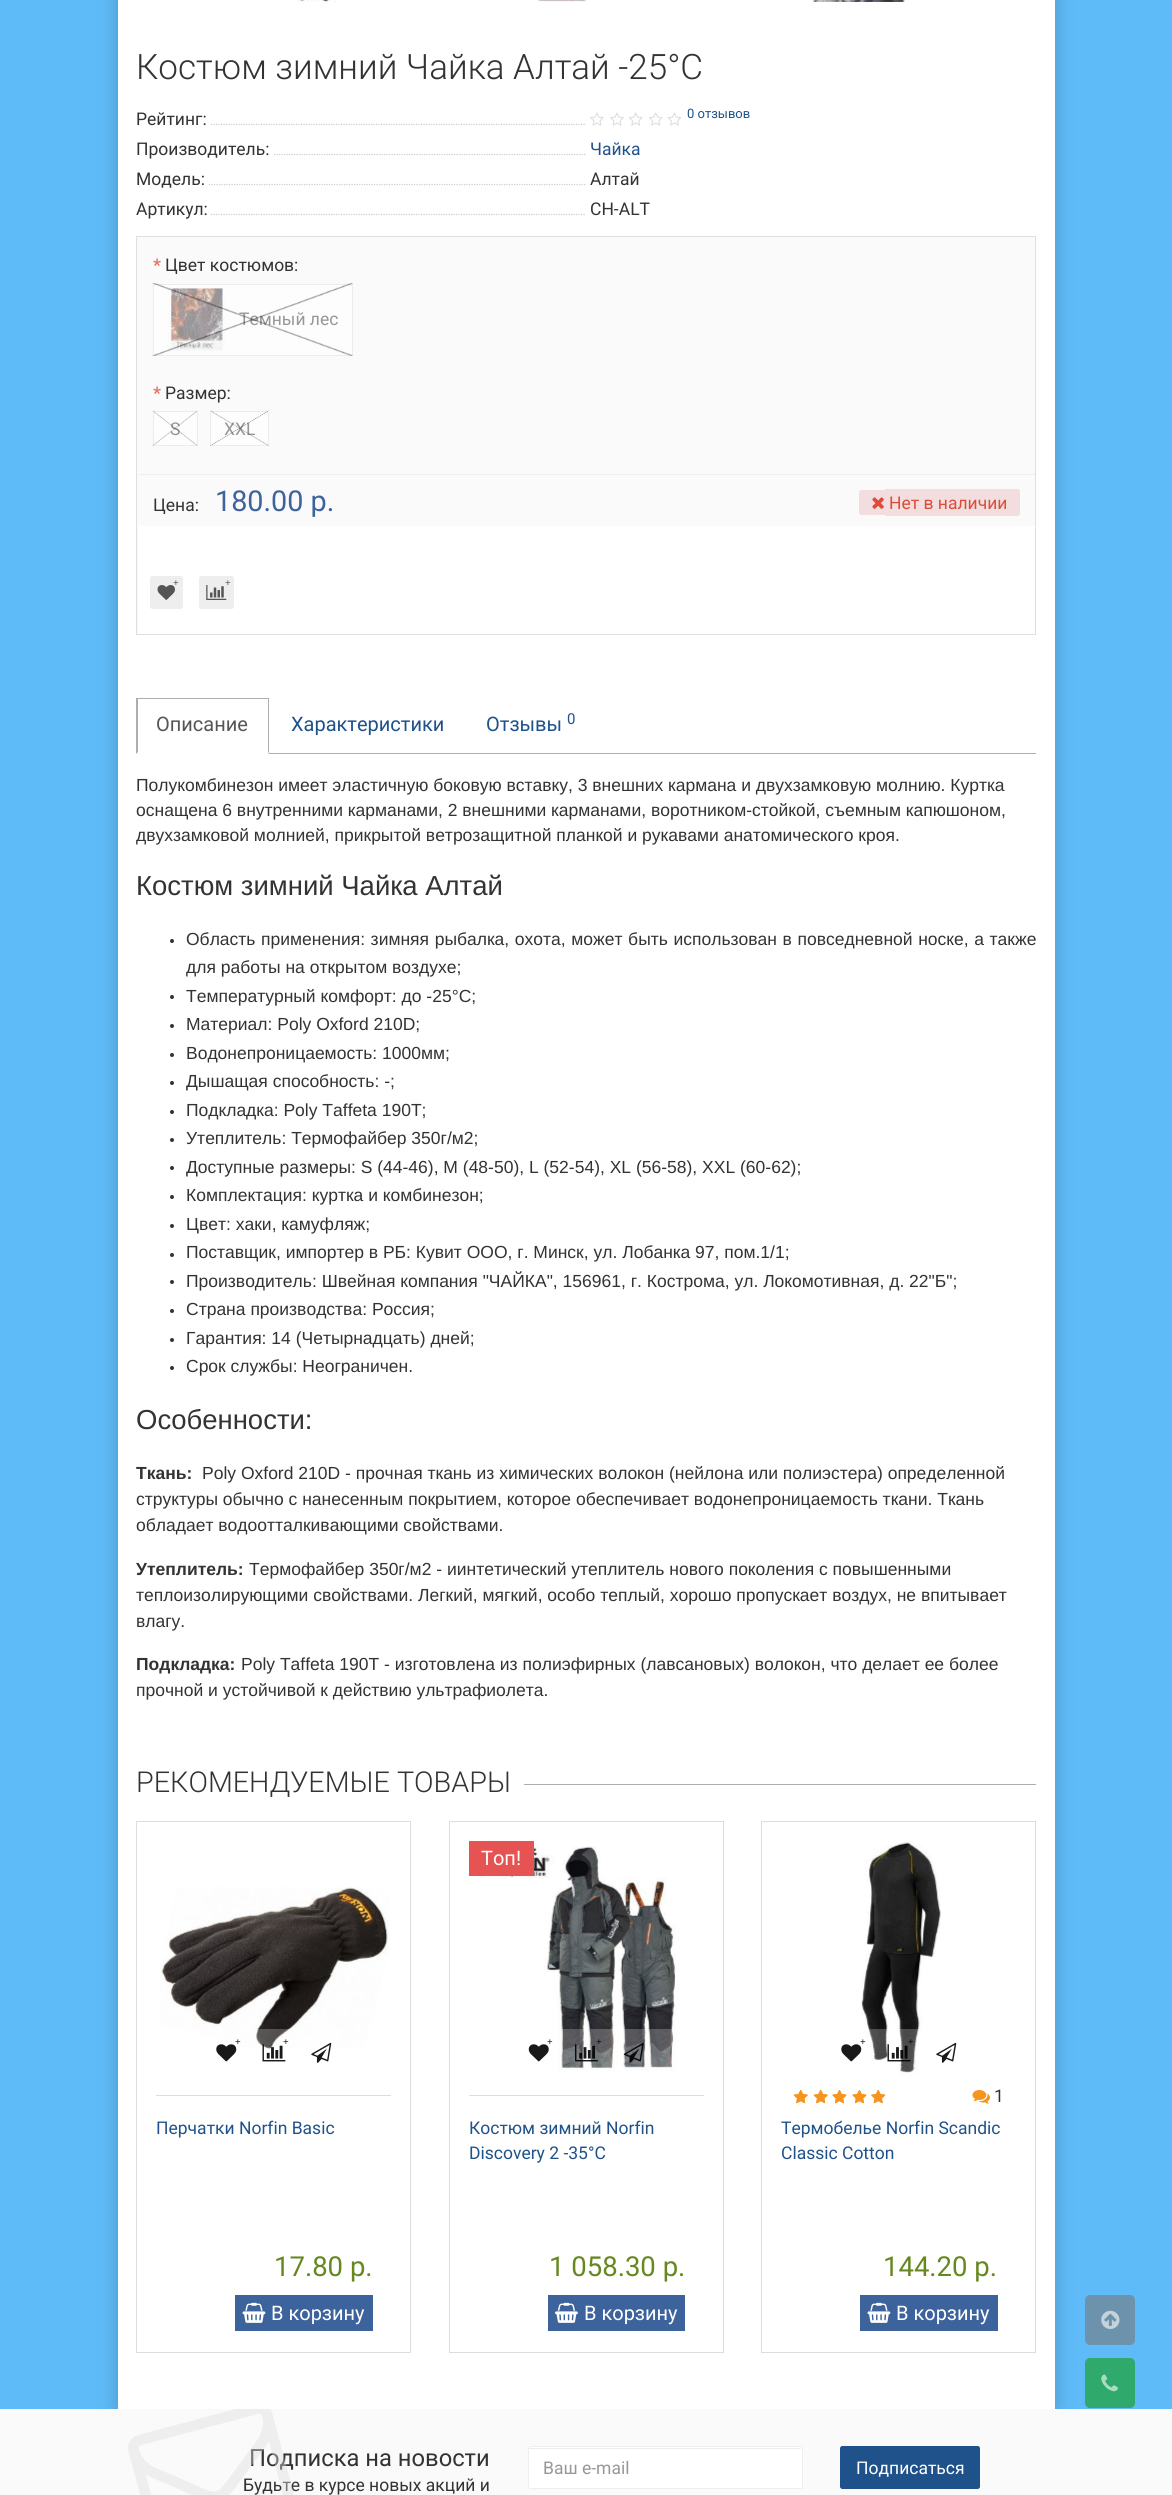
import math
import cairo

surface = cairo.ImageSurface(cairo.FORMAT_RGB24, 1172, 2495)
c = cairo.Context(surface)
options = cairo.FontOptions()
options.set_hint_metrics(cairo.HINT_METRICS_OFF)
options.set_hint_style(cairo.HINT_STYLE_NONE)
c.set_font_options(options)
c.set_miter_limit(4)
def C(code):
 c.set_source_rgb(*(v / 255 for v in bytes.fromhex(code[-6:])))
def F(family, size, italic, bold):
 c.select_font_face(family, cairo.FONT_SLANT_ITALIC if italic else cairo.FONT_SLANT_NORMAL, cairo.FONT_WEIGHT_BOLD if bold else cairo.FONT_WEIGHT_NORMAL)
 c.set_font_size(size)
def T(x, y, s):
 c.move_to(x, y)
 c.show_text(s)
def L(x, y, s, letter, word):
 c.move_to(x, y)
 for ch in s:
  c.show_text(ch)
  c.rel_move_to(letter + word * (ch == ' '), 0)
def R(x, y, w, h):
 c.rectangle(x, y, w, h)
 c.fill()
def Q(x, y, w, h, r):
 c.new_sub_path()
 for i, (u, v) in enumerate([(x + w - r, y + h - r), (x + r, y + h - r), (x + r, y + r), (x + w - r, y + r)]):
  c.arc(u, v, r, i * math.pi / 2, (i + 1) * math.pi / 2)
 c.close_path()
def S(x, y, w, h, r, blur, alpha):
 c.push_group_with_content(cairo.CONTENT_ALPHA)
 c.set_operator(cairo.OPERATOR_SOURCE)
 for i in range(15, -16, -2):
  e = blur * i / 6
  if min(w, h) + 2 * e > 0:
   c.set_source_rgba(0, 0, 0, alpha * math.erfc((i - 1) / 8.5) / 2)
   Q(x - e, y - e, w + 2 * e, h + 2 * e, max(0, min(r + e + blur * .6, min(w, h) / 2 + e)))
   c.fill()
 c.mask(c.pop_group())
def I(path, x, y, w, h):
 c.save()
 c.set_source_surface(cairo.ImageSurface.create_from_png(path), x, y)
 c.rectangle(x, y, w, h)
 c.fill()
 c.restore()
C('5ebbf8')
c.paint()
C('000000')
S(118,-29,937,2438,0,9.5,.2)
C('ffffff')
R(118,0,937,2409)
I('1.png',297,0,39,2)
I('2.png',537,0,50,2)
I('3.png',812,0,97,2)
F('Roboto Light',35,0,0)
C('333333')
T(136,79,'Костюм зимний Чайка Алтай -25°С')
F('Roboto',17.5,0,0)
T(136,125,'Рейтинг:')
c.save()
c.rectangle(136,104,450,30)
c.clip()
c.new_path()
c.move_to(211,124.5)
c.line_to(661,124.5)
C('cccccc')
c.set_line_width(1.2)
c.set_dash([1.25,1.25])
c.stroke()
c.restore()
I('4.png',590,112,14,14)
I('4.png',610,112,14,14)
I('5.png',629,112,14,14)
I('5.png',649,112,14,14)
I('6.png',667,112,15,14)
F('Roboto',13,0,0)
C('1f528a')
T(687,118,'0 отзывов')
F('Roboto',17.5,0,0)
C('333333')
T(136,155,'Производитель:')
c.save()
c.rectangle(136,134,450,30)
c.clip()
c.new_path()
c.move_to(274,154.5)
c.line_to(724,154.5)
C('cccccc')
c.set_line_width(1.2)
c.set_dash([1.25,1.25])
c.stroke()
c.restore()
C('1f528a')
T(590,155,'Чайка')
C('333333')
T(136,185,'Модель:')
c.save()
c.rectangle(136,164,450,30)
c.clip()
c.new_path()
c.move_to(209,184.5)
c.line_to(659,184.5)
C('cccccc')
c.set_line_width(1.2)
c.set_dash([1.25,1.25])
c.stroke()
c.restore()
T(590,185,'Алтай')
T(136,215,'Артикул:')
c.save()
c.rectangle(136,194,450,30)
c.clip()
c.new_path()
c.move_to(211,214.5)
c.line_to(661,214.5)
C('cccccc')
c.set_line_width(1.2)
c.set_dash([1.25,1.25])
c.stroke()
c.restore()
T(590,215,'CH-ALT')
C('fafafa')
c.rectangle(136.5,236.5,899,398)
c.fill_preserve()
C('dfdfdf')
c.set_line_width(1)
c.stroke()
F('Roboto',17.5,0,1)
C('e47364')
T(153,271,'*')
F('Roboto',17.5,0,0)
C('333333')
T(165,271,'Цвет костюмов:')
C('fdfdfd')
Q(153.5,284.5,199,71,2)
c.fill_preserve()
C('ececec')
c.stroke()
I('9.png',166,288,60,63)
C('979797')
T(239,325,'Темный лес')
I('7.png',152,283,201,73)
I('8.png',152,283,201,73)
F('Roboto',17.5,0,1)
C('e47364')
T(153,399,'*')
F('Roboto',17.5,0,0)
C('333333')
T(165,399,'Размер:')
C('fdfdfd')
Q(153.5,411.5,44,34,2)
c.fill_preserve()
C('ececec')
c.stroke()
C('979797')
T(170,435,'S')
I('10.png',152,410,46,36)
I('11.png',152,410,46,36)
C('fdfdfd')
Q(210.5,411.5,58,34,2)
c.fill_preserve()
C('ececec')
c.stroke()
C('979797')
T(224,435,'XXL')
I('12.png',210,410,59,36)
I('13.png',210,410,59,36)
C('eeeeee')
R(138,474,897,1)
C('333333')
T(153,511,'Цена:')
F('Roboto',28.75,0,0)
C('3d639d')
T(215,511,'180.00 р.')
C('f2dede')
c.new_path()
c.move_to(861.5,490)
c.line_to(885,490)
c.line_to(885,515)
c.line_to(861.5,515)
c.curve_to(860,515,859,514,859,512.5)
c.line_to(859,492.5)
c.curve_to(859,491,860,490,861.5,490)
c.close_path()
c.fill()
c.new_path()
c.move_to(885,489)
c.line_to(1017.5,489)
c.curve_to(1019,489,1020,490,1020,491.5)
c.line_to(1020,513.5)
c.curve_to(1020,515,1019,516,1017.5,516)
c.line_to(885,516)
c.close_path()
c.fill()
I('14.png',872,497,12,12)
F('Roboto',17.5,0,0)
C('dd4b39')
T(889,509,'Нет в наличии')
C('ffffff')
R(138,526,897,108)
C('eeeeee')
Q(151.5,577.5,30,30,1)
c.fill_preserve()
c.set_line_width(3)
c.stroke()
F('Liberation Serif',10,0,1)
C('555555')
T(173,586,'+')
I('15.png',157,585,18,15)
C('eeeeee')
Q(200.5,577.5,32,30,1)
c.fill_preserve()
c.stroke()
I('16.png',206,585,21,15)
C('555555')
T(225,586,'+')
C('adadad')
R(269,753,767,1)
R(136,698,133,1)
c.new_path()
c.move_to(269,698)
c.line_to(269,754)
c.line_to(268,752)
c.line_to(268,699)
c.close_path()
c.fill()
c.new_path()
c.move_to(136,754)
c.line_to(136,698)
c.line_to(138,699)
c.line_to(138,752)
c.close_path()
c.fill()
F('Roboto',20,0,0)
C('555555')
T(156,731,'Описание')
C('1f528a')
T(291,731,'Характеристики')
T(486,731,'Отзывы')
F('Roboto',15,0,0)
T(567,724,'0')
F('Liberation Sans',17.5,0,0)
C('333333')
T(136,791,'Полукомбинезон имеет эластичную боковую вставку, 3 внешних кармана и двухзамковую молнию. Куртка')
T(136,816,'оснащена 6 внутренними карманами, 2 внешними карманами, воротником-стойкой, съемным капюшоном,')
T(136,841,'двухзамковой молнией, прикрытой ветрозащитной планкой и рукавами анатомического кроя.')
F('Liberation Sans',27.5,0,0)
T(136,895,'Костюм зимний Чайка Алтай')
c.new_path()
c.arc(172,941,2,0,2 * math.pi)
c.fill()
F('Liberation Sans',17.5,0,0)
L(186,945,'Область применения: зимняя рыбалка, охота, может быть использован в повседневной носке, а также',0,.75)
T(186,973,'для работы на открытом воздухе;')
c.new_path()
c.arc(172,997,2,0,2 * math.pi)
c.fill()
T(186,1002,'Температурный комфорт: до -25°C;')
c.new_path()
c.arc(172,1026,2,0,2 * math.pi)
c.fill()
T(186,1030,'Материал: Poly Oxford 210D;')
c.new_path()
c.arc(172,1055,2,0,2 * math.pi)
c.fill()
T(186,1059,'Водонепроницаемость: 1000мм;')
c.new_path()
c.arc(172,1083,2,0,2 * math.pi)
c.fill()
T(186,1087,'Дышащая способность: -;')
c.new_path()
c.arc(172,1112,2,0,2 * math.pi)
c.fill()
T(186,1116,'Подкладка: Poly Taffeta 190T;')
c.new_path()
c.arc(172,1140,2,0,2 * math.pi)
c.fill()
T(186,1144,'Утеплитель: Термофайбер 350г/м2;')
c.new_path()
c.arc(172,1168,2,0,2 * math.pi)
c.fill()
T(186,1173,'Доступные размеры: S (44-46), M (48-50), L (52-54), XL (56-58), XXL (60-62);')
c.new_path()
c.arc(172,1197,2,0,2 * math.pi)
c.fill()
T(186,1201,'Комплектация: куртка и комбинезон;')
c.new_path()
c.arc(172,1226,2,0,2 * math.pi)
c.fill()
T(186,1230,'Цвет: хаки, камуфляж;')
c.new_path()
c.arc(172,1255,2,0,2 * math.pi)
c.fill()
T(186,1258,'Поставщик, импортер в РБ: Кувит ООО, г. Минск, ул. Лобанка 97, пом.1/1;')
c.new_path()
c.arc(172,1282,2,0,2 * math.pi)
c.fill()
T(186,1287,'Производитель: Швейная компания "ЧАЙКА", 156961, г. Кострома, ул. Локомотивная, д. 22"Б";')
c.new_path()
c.arc(172,1311,2,0,2 * math.pi)
c.fill()
T(186,1315,'Страна производства: Россия;')
c.new_path()
c.arc(172,1340,2,0,2 * math.pi)
c.fill()
T(186,1344,'Гарантия: 14 (Четырнадцать) дней;')
c.new_path()
c.arc(172,1368,2,0,2 * math.pi)
c.fill()
T(186,1372,'Срок службы: Неограничен.')
F('Liberation Sans',27.5,0,0)
T(136,1429,'Особенности:')
F('Liberation Sans',17.5,0,1)
T(136,1479,'Ткань:')
F('Liberation Sans',17.5,0,0)
T(202,1479,'Poly Oxford 210D - прочная ткань из химических волокон (нейлона или полиэстера) определенной')
T(136,1505,'структуры обычно с нанесенным покрытием, которое обеспечивает водонепроницаемость ткани. Ткань')
T(136,1531,'обладает водоотталкивающими свойствами.')
F('Liberation Sans',17.5,0,1)
T(136,1575,'Утеплитель:')
F('Liberation Sans',17.5,0,0)
T(249,1575,'Термофайбер 350г/м2 - иинтетический утеплитель нового поколения с повышенными')
T(136,1601,'теплоизолирующими свойствами. Легкий, мягкий, особо теплый, хорошо пропускает воздух, не впитывает')
T(136,1627,'влагу.')
F('Liberation Sans',17.5,0,1)
T(136,1670,'Подкладка:')
F('Liberation Sans',17.5,0,0)
T(241,1670,'Poly Taffeta 190T - изготовлена из полиэфирных (лавсановых) волокон, что делает ее более')
T(136,1696,'прочной и устойчивой к действию ультрафиолета.')
C('adadad')
R(524,1784,512,1)
F('Roboto Light',28.75,0,0)
C('333333')
T(136,1792,'РЕКОМЕНДУЕМЫЕ ТОВАРЫ')
c.rectangle(136.5,1821.5,274,531)
C('dddddd')
c.set_line_width(1)
c.stroke()
I('17.png',160,1887,229,162)
c.set_source_rgba(1,1,1,0.23)
Q(156,2029,235,47,2.5)
c.fill()
I('18.png',216,2044,21,18)
F('Liberation Serif',10,0,1)
C('191919')
T(235,2045,'+')
T(283,2045,'+')
I('19.png',262,2044,24,18)
I('20.png',311,2042,21,21)
C('dddddd')
R(156,2095,235,1)
F('Roboto',17.5,0,0)
C('1f528a')
T(156,2134,'Перчатки Norfin Basic')
F('Roboto',27.5,0,0)
C('65881f')
T(274,2276,'17.80 р.')
C('3d639d')
R(235,2295,138,36)
I('21.png',242,2302,24,21)
F('Roboto',20,0,0)
C('ffffff')
T(271,2320,'В корзину')
c.rectangle(449.5,1821.5,274,531)
C('dddddd')
c.stroke()
I('22.png',478,1846,198,225)
C('e55353')
R(469,1841,65,35)
C('ffffff')
T(481,1865,'Топ!')
c.set_source_rgba(1,1,1,0.23)
Q(469,2029,235,47,2.5)
c.fill()
F('Liberation Serif',10,0,1)
C('191919')
T(547,2045,'+')
I('23.png',528,2044,21,18)
I('24.png',575,2044,23,18)
C('09090a')
T(596,2045,'+')
I('25.png',623,2043,21,20)
C('dddddd')
R(469,2095,235,1)
F('Roboto',17.5,0,0)
C('1f528a')
T(469,2134,'Костюм зимний Norfin')
T(469,2159,'Discovery 2 -35°С')
F('Roboto',27.5,0,0)
C('65881f')
T(549,2276,'1 058.30 р.')
C('3d639d')
R(548,2295,137,36)
I('26.png',555,2302,23,21)
F('Roboto',20,0,0)
C('ffffff')
T(584,2320,'В корзину')
c.rectangle(761.5,1821.5,274,531)
C('dddddd')
c.stroke()
I('27.png',861,1841,80,234)
c.set_source_rgba(1,1,1,0.23)
Q(781,2029,235,47,2.5)
c.fill()
I('18.png',841,2044,21,18)
F('Liberation Serif',10,0,1)
C('191919')
T(860,2045,'+')
C('09090a')
T(908,2045,'+')
I('28.png',887,2044,24,18)
I('29.png',936,2042,21,21)
I('30.png',793,2090,15,14)
I('31.png',793,2090,15,14)
I('30.png',813,2090,15,14)
I('31.png',813,2090,15,14)
I('32.png',832,2090,15,14)
I('33.png',832,2090,15,14)
I('32.png',852,2090,15,14)
I('33.png',852,2090,15,14)
I('34.png',871,2090,15,14)
I('35.png',871,2090,15,14)
I('36.png',972,2090,18,14)
F('Roboto',17.5,0,0)
C('333333')
T(994,2102,'1')
C('1f528a')
T(781,2134,'Термобелье Norfin Scandic')
T(781,2159,'Classic Cotton')
F('Roboto',27.5,0,0)
C('65881f')
T(883,2276,'144.20 р.')
C('3d639d')
R(860,2295,138,36)
I('21.png',867,2302,24,21)
F('Roboto',20,0,0)
C('ffffff')
T(896,2320,'В корзину')
C('fafafa')
R(0,2409,1172,86)
F('Roboto',23.75,0,0)
C('333333')
T(249,2466,'Подписка на новости')
F('Roboto',17.5,0,0)
T(243,2491,'Будьте в курсе новых акций и')
I('37.png',128,2409,166,86)
C('ffffff')
Q(528,2446,275,43,2.5)
c.fill()
C('ececec')
c.new_path()
c.move_to(530,2449)
c.line_to(800,2449)
c.curve_to(801,2449,801,2449,801,2450)
c.curve_to(801,2449,801,2448,800,2448)
c.line_to(530,2448)
c.line_to(529,2448)
c.line_to(529,2450)
c.curve_to(529,2449,529,2449,530,2449)
c.close_path()
c.fill()
Q(528.5,2446.5,274,42,2)
C('eeeeee')
c.stroke()
C('979797')
T(543,2474,'Ваш e-mail')
C('1f528a')
Q(840.5,2446.5,139,42,2)
c.fill_preserve()
c.stroke()
C('ffffff')
T(856,2474,'Подписаться')
C('6d92ab')
Q(1085,2295,50,50,5)
c.fill()
I('38.png',1101,2310,19,19)
C('30a96c')
Q(1085,2358,50,50,5)
c.fill()
I('39.png',1101,2374,17,18)
surface.write_to_png('o.png')
